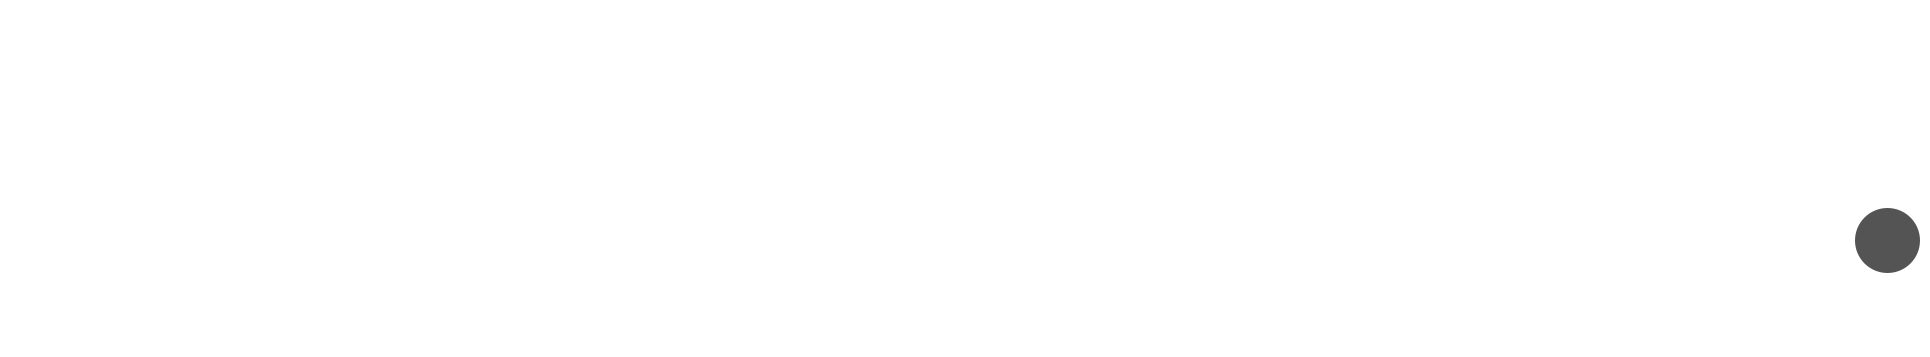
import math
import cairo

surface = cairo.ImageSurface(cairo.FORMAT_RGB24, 1930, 357)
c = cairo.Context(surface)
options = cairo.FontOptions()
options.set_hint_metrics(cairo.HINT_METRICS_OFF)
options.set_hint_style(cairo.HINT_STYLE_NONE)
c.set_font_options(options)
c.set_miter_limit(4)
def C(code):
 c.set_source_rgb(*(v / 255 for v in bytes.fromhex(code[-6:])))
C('ffffff')
c.paint()
C('545454')
c.arc(1887.5,240.5,32.5,0,2 * math.pi)
c.fill()
surface.write_to_png('o.png')
